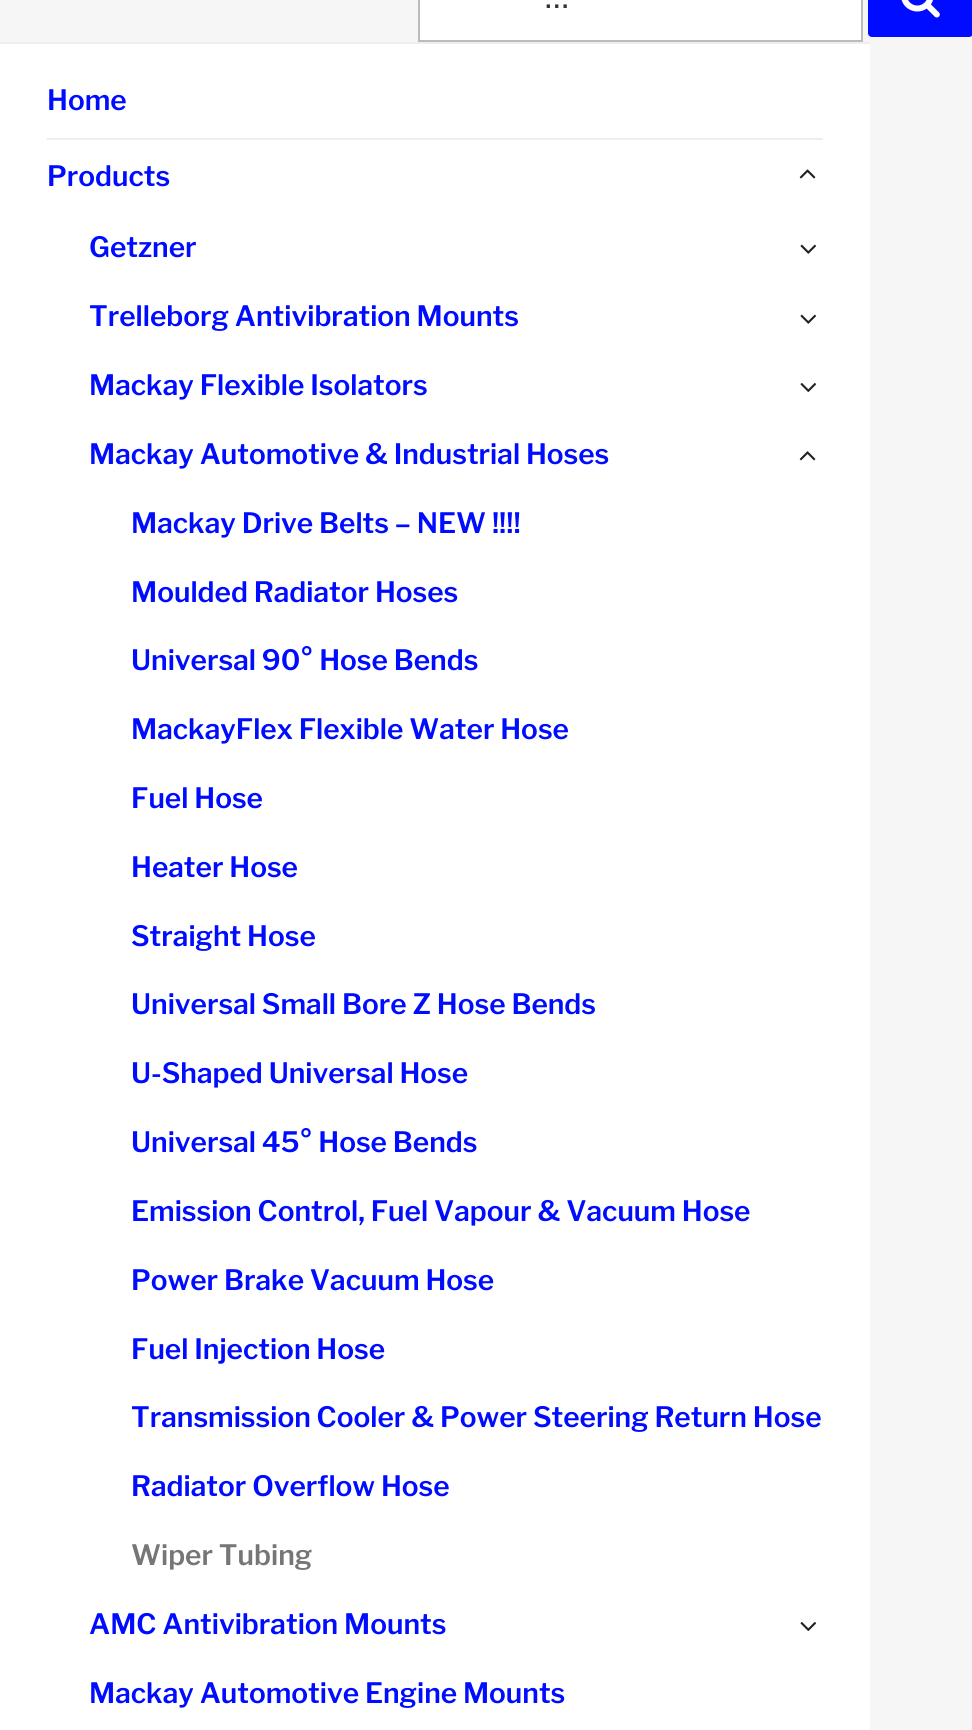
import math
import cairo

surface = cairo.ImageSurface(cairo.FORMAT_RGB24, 972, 1730)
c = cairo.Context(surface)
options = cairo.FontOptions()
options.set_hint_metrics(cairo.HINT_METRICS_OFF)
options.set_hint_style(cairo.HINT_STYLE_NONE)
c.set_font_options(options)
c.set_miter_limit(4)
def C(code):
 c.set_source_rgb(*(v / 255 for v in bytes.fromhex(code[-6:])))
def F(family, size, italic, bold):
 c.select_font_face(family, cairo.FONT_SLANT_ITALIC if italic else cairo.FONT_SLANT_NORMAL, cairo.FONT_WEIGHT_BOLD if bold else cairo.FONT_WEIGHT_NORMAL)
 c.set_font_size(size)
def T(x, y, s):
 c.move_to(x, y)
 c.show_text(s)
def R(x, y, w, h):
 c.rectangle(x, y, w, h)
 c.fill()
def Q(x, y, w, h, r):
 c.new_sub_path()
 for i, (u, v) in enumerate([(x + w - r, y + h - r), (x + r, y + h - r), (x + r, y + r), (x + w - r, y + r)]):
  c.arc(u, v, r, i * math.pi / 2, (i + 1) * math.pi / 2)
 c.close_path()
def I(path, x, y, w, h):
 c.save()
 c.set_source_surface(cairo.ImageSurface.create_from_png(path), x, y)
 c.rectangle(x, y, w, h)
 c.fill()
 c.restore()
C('f6f6f6')
c.paint()
C('ffffff')
c.rectangle(419,-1,443,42)
c.fill_preserve()
C('bbbbbb')
c.stroke()
F('Libre Franklin',32,0,0)
C('333333')
T(545,8,'…')
C('000cff')
Q(868,-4,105,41,4)
c.fill()
I('1.png',901,0,39,18)
C('ffffff')
R(0,44,870,1686)
C('eeeeee')
R(0,42,870,2)
R(47,138,776,2)
F('Libre Franklin SemiBold',28,0,0)
C('000cff')
T(47,110,'Home')
T(47,186,'Products')
I('2.png',799,169,17,10)
T(89,257,'Getzner')
I('3.png',800,244,16,10)
T(89,326,'Trelleborg Antivibration Mounts')
I('3.png',800,314,16,10)
T(89,395,'Mackay Flexible Isolators')
I('4.png',800,383,17,9)
T(89,464,'Mackay Automotive & Industrial Hoses')
I('5.png',799,451,17,10)
T(131,533,'Mackay Drive Belts – NEW !!!!')
T(131,602,'Moulded Radiator Hoses')
T(131,670,'Universal 90° Hose Bends')
T(131,739,'MackayFlex Flexible Water Hose')
T(131,808,'Fuel Hose')
T(131,877,'Heater Hose')
T(131,946,'Straight Hose')
T(131,1014,'Universal Small Bore Z Hose Bends')
T(131,1083,'U-Shaped Universal Hose')
T(131,1152,'Universal 45° Hose Bends')
T(131,1221,'Emission Control, Fuel Vapour & Vacuum Hose')
T(131,1290,'Power Brake Vacuum Hose')
T(131,1359,'Fuel Injection Hose')
T(131,1427,'Transmission Cooler & Power Steering Return Hose')
T(131,1496,'Radiator Overflow Hose')
C('767676')
T(131,1565,'Wiper Tubing')
C('000cff')
T(89,1634,'AMC Antivibration Mounts')
I('4.png',800,1622,17,9)
T(89,1703,'Mackay Automotive Engine Mounts')
surface.write_to_png('o.png')
